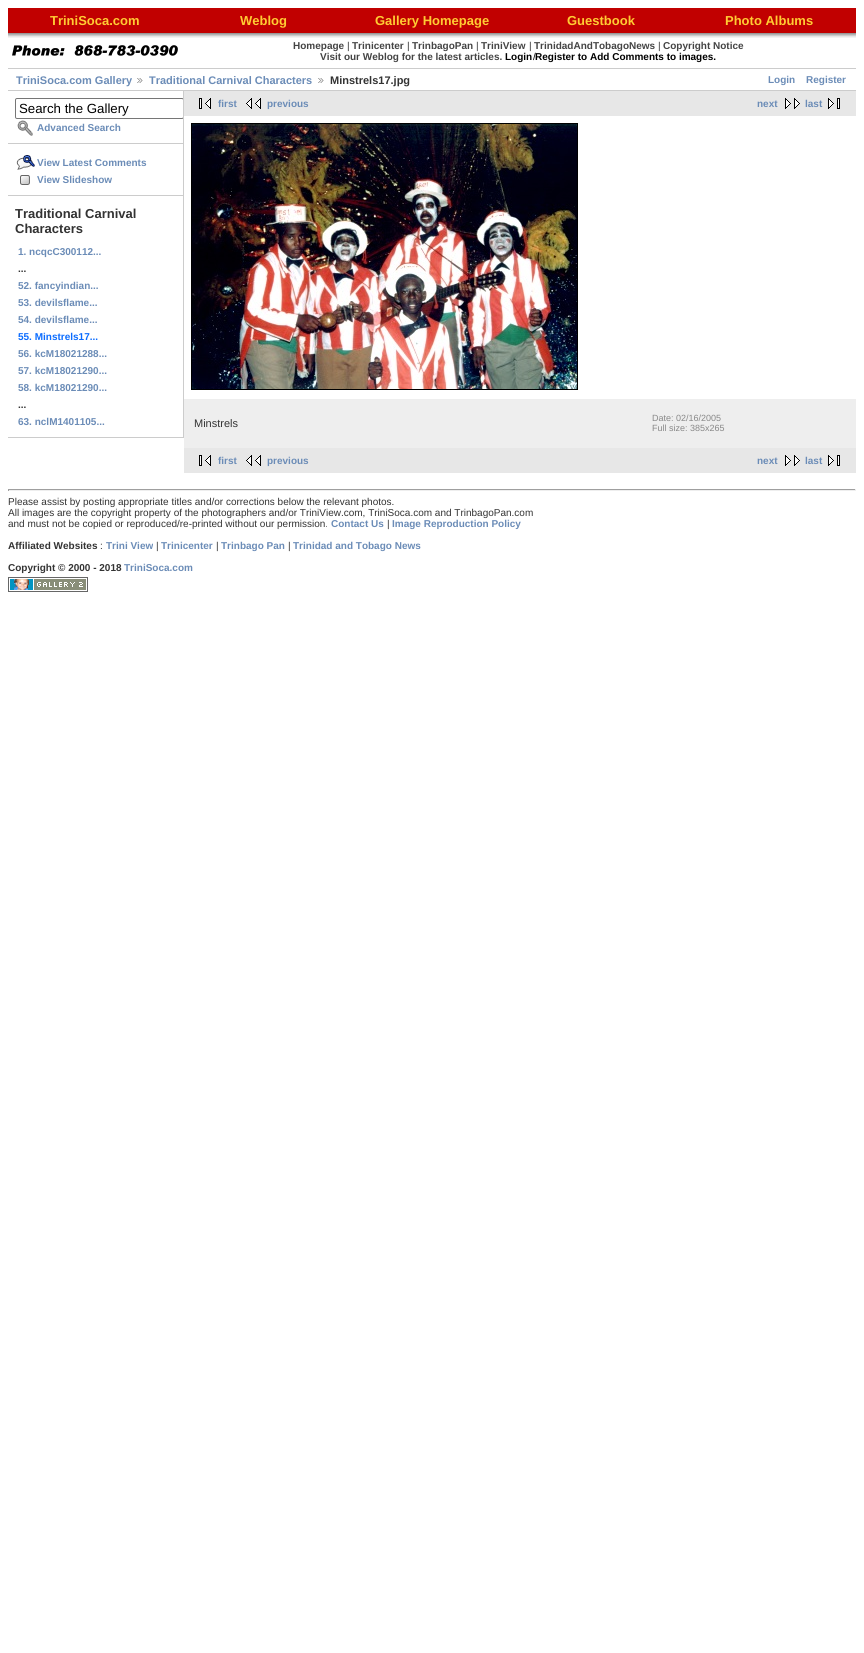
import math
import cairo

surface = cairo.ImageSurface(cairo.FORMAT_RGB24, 864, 1653)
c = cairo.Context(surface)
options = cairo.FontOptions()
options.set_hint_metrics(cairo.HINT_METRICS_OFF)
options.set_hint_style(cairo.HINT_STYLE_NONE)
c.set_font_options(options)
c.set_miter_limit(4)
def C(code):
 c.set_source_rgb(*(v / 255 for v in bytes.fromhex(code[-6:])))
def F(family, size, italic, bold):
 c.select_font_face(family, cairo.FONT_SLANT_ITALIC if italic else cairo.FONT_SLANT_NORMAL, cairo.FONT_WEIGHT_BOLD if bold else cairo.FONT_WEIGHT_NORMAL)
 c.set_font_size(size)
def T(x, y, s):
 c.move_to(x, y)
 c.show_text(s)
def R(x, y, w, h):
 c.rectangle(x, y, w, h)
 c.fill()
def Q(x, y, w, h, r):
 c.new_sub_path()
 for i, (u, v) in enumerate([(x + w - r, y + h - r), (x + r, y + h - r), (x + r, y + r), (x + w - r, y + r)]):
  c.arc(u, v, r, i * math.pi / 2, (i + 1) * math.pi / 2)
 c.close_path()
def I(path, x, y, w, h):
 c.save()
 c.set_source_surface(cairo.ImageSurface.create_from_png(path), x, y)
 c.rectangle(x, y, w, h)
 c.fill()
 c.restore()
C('ffffff')
c.paint()
C('c10000')
R(8,8,848,25)
F('Liberation Sans',13,0,1)
C('ffcc33')
T(50,25,'TriniSoca.com')
T(240,25,'Weblog')
T(375,25,'Gallery Homepage')
T(567,25,'Guestbook')
T(725,25,'Photo Albums')
I('1.png',8,33,848,5)
I('2.png',12,45,166,11)
F('Liberation Sans',10,0,1)
C('444444')
T(293,49,'Homepage')
F('Liberation Sans',10,0,0)
C('333333')
T(347,49,'|')
F('Liberation Sans',10,0,1)
C('444444')
T(352,49,'Trinicenter')
F('Liberation Sans',10,0,0)
C('333333')
T(407,49,'|')
F('Liberation Sans',10,0,1)
C('444444')
T(412,49,'TrinbagoPan')
F('Liberation Sans',10,0,0)
C('333333')
T(476,49,'|')
F('Liberation Sans',10,0,1)
C('444444')
T(481,49,'TriniView')
F('Liberation Sans',10,0,0)
C('333333')
T(529,49,'|')
F('Liberation Sans',10,0,1)
C('444444')
T(534,49,'TrinidadAndTobagoNews')
F('Liberation Sans',10,0,0)
C('333333')
T(658,49,'|')
F('Liberation Sans',10,0,1)
C('444444')
T(663,49,'Copyright Notice')
T(320,60,'Visit our Weblog for the latest articles.')
C('000000')
T(505,60,'Login Register to Add Comments to images.')
F('Liberation Sans',10,0,0)
T(533,60,'/')
C('cccccc')
R(8,68,848,1)
R(8,90,848,1)
F('Liberation Sans',11,0,1)
C('6b8cb7')
T(16,84,'TriniSoca.com Gallery')
I('3.png',137,78,6,5)
T(149,84,'Traditional Carnival Characters')
I('3.png',318,78,6,5)
C('333333')
T(330,84,'Minstrels17.jpg')
F('Liberation Sans',10,0,1)
C('6b8cb7')
T(768,83,'Login')
T(806,83,'Register')
C('cccccc')
R(183,91,1,347)
R(8,143,175,1)
c.save()
c.rectangle(8,91,175,347)
c.clip()
Q(15.5,98.5,168,20,1.5)
C('767676')
c.set_line_width(1)
c.stroke()
c.restore()
F('Liberation Sans',13.25,0,0)
C('000000')
T(19,113,'Search the Gallery')
I('4.png',17,120,16,16)
F('Liberation Sans',10,0,1)
C('6b8cb7')
T(37,131,'Advanced Search')
C('cccccc')
R(8,195,175,1)
I('5.png',16,155,19,15)
C('6b8cb7')
T(37,166,'View Latest Comments')
I('6.png',20,175,10,10)
T(37,183,'View Slideshow')
C('cccccc')
R(8,437,175,1)
F('Liberation Sans',13,0,1)
C('333333')
T(15,218,'Traditional Carnival')
T(15,233,'Characters')
F('Liberation Sans',10,0,1)
C('6b8cb7')
T(18,255,'1. ncqcC300112...')
C('333333')
T(18,272,'...')
C('6b8cb7')
T(18,289,'52. fancyindian...')
T(18,306,'53. devilsflame...')
T(18,323,'54. devilsflame...')
C('0b6cff')
T(18,340,'55. Minstrels17...')
C('6b8cb7')
T(18,357,'56. kcM18021288...')
T(18,374,'57. kcM18021290...')
T(18,391,'58. kcM18021290...')
C('333333')
T(18,408,'...')
C('6b8cb7')
T(18,425,'63. nclM1401105...')
C('e7e7e7')
R(184,91,672,25)
I('7.png',199,98,12,11)
C('6b8cb7')
T(218,107,'first')
I('8.png',246,98,15,11)
T(267,107,'previous')
T(757,107,'next')
I('9.png',785,98,15,11)
T(805,107,'last')
I('10.png',828,98,12,11)
c.rectangle(191.5,123.5,386,266)
C('000000')
c.set_line_width(1)
c.stroke()
I('11.png',192,124,385,265)
C('eeeeee')
R(184,399,672,49)
F('Liberation Sans',11,0,0)
C('333333')
T(194,427,'Minstrels')
F('Liberation Sans',9,0,0)
C('888888')
T(652,421,'Date: 02/16/2005')
T(652,431,'Full size: 385x265')
C('e7e7e7')
R(184,448,672,25)
I('7.png',199,455,12,11)
F('Liberation Sans',10,0,1)
C('6b8cb7')
T(218,464,'first')
I('8.png',246,455,15,11)
T(267,464,'previous')
T(757,464,'next')
I('9.png',785,455,15,11)
T(805,464,'last')
I('10.png',828,455,12,11)
C('9f9f9f')
R(8,489,848,1)
C('eeeeee')
R(855,489,1,2)
R(8,490,848,1)
C('9f9f9f')
R(8,489,1,2)
F('Liberation Sans',10,0,0)
C('333333')
T(8,505,'Please assist by posting appropriate titles and/or corrections below the relevant photos.')
T(8,516,'All images are the copyright property of the photographers and/or TriniView.com, TriniSoca.com and TrinbagoPan.com')
T(8,527,'and must not be copied or reproduced/re-printed without our permission.')
F('Liberation Sans',10,0,1)
C('6b8cb7')
T(331,527,'Contact Us')
F('Liberation Sans',10,0,0)
C('333333')
T(387,527,'|')
F('Liberation Sans',10,0,1)
C('6b8cb7')
T(392,527,'Image Reproduction Policy')
C('333333')
T(8,549,'Affiliated Websites')
F('Liberation Sans',10,0,0)
T(100,549,':')
F('Liberation Sans',10,0,1)
C('6b8cb7')
T(106,549,'Trini View')
F('Liberation Sans',10,0,0)
C('333333')
T(156,549,'|')
F('Liberation Sans',10,0,1)
C('6b8cb7')
T(161,549,'Trinicenter')
F('Liberation Sans',10,0,0)
C('333333')
T(216,549,'|')
F('Liberation Sans',10,0,1)
C('6b8cb7')
T(221,549,'Trinbago Pan')
F('Liberation Sans',10,0,0)
C('333333')
T(288,549,'|')
F('Liberation Sans',10,0,1)
C('6b8cb7')
T(293,549,'Trinidad and Tobago News')
C('333333')
T(8,571,'Copyright © 2000 - 2018')
C('6b8cb7')
T(124,571,'TriniSoca.com')
I('12.png',8,577,80,15)
surface.write_to_png('o.png')
